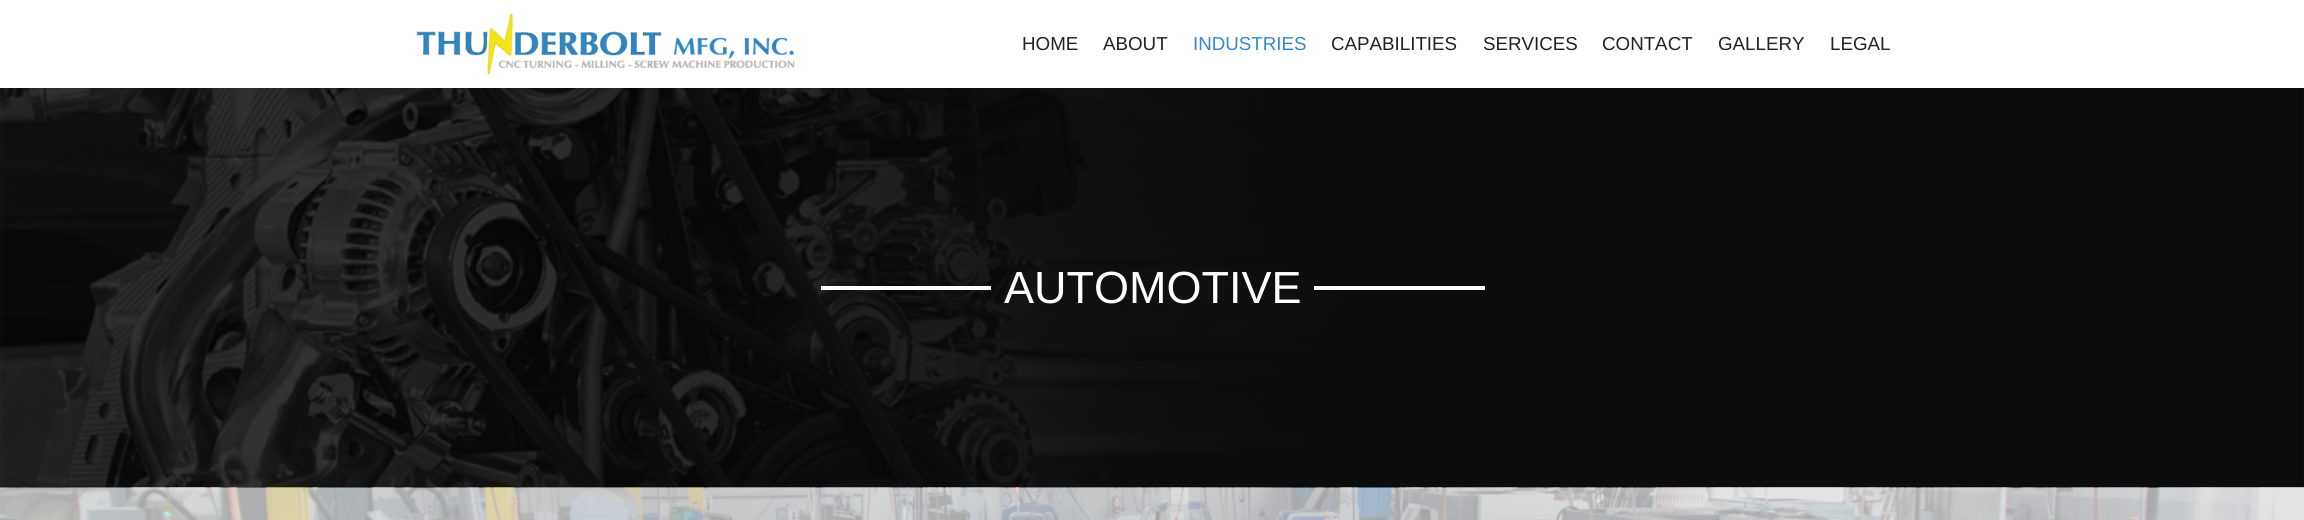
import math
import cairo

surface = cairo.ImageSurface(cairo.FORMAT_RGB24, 2304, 520)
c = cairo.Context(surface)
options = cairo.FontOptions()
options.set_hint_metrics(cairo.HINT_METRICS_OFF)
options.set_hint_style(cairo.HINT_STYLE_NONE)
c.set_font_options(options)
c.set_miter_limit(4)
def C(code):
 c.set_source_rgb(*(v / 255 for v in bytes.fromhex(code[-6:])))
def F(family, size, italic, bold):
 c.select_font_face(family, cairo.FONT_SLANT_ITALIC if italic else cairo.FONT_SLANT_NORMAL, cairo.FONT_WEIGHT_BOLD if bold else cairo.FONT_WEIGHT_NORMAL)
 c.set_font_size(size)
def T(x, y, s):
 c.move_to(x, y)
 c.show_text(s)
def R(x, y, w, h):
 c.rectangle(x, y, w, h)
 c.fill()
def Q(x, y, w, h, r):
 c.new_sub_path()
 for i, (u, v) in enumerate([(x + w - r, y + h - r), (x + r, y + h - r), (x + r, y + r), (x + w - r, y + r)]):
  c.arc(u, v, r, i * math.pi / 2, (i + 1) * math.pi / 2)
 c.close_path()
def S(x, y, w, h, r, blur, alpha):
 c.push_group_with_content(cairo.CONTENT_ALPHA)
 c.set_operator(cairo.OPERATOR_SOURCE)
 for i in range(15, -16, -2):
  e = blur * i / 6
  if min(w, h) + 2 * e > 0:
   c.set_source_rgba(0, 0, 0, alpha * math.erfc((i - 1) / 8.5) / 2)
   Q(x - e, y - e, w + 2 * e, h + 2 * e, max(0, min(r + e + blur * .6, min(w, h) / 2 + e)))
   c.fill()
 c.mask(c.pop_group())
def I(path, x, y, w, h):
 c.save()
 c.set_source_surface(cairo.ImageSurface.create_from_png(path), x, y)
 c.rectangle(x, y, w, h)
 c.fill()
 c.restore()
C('ffffff')
c.paint()
I('2.png',0,88,2304,400)
C('000000')
S(0,0,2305,88,0,1,.16)
C('ffffff')
R(0,0,2304,88)
I('1.png',416,13,379,62)
F('Liberation Sans',18.75,0,0)
C('222222')
T(1022,50,'HOME')
T(1103,50,'ABOUT')
C('3588cc')
T(1193,50,'INDUSTRIES')
C('222222')
T(1331,50,'CAPABILITIES')
T(1483,50,'SERVICES')
T(1602,50,'CONTACT')
T(1718,50,'GALLERY')
T(1830,50,'LEGAL')
C('ffffff')
R(821,286,170,4)
F('Liberation Sans',45,0,0)
T(1004,303,'AUTOMOTIVE')
R(1314,286,171,4)
I('3.png',0,487,2304,33)
surface.write_to_png('o.png')
